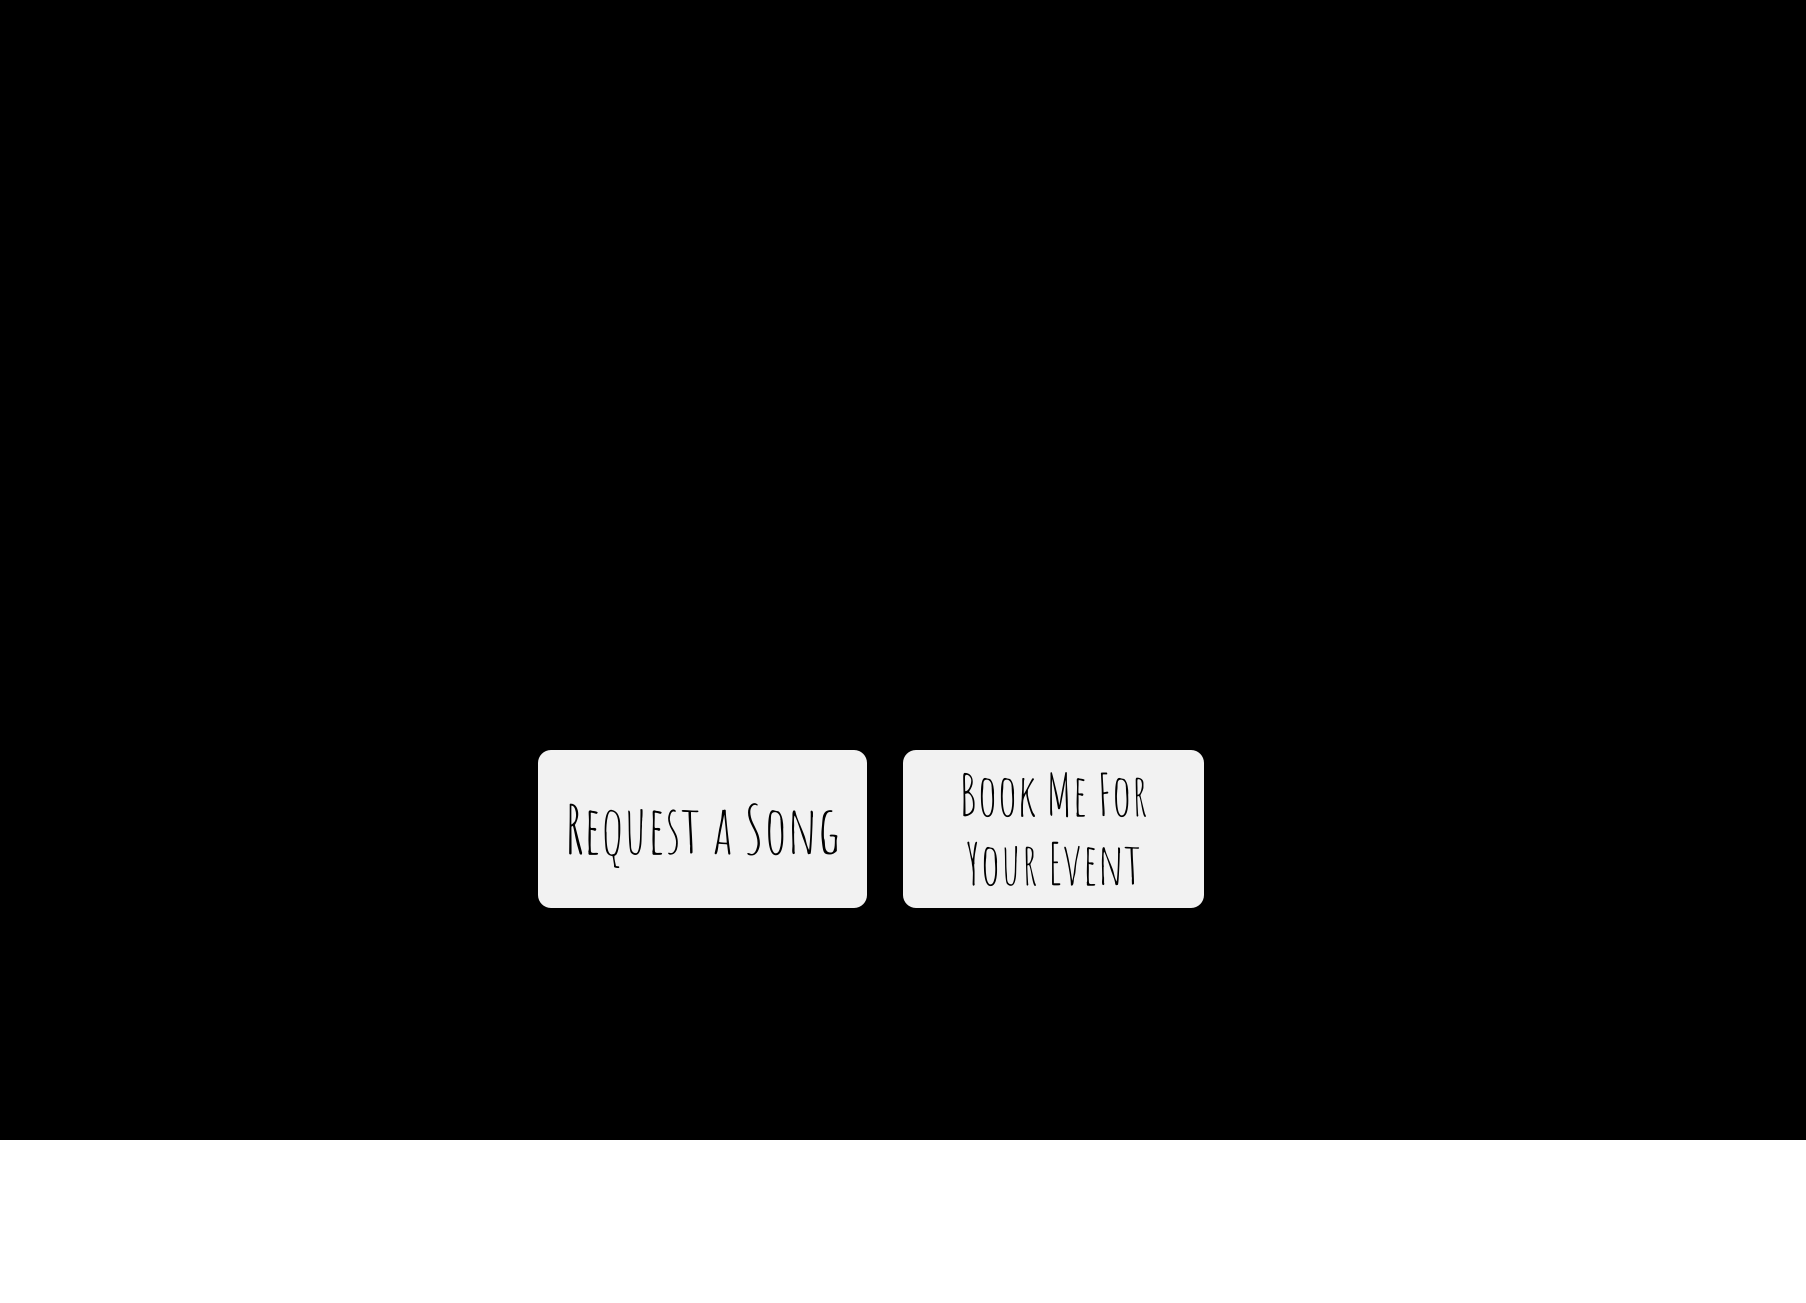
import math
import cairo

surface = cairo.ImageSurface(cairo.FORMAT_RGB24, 1806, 1303)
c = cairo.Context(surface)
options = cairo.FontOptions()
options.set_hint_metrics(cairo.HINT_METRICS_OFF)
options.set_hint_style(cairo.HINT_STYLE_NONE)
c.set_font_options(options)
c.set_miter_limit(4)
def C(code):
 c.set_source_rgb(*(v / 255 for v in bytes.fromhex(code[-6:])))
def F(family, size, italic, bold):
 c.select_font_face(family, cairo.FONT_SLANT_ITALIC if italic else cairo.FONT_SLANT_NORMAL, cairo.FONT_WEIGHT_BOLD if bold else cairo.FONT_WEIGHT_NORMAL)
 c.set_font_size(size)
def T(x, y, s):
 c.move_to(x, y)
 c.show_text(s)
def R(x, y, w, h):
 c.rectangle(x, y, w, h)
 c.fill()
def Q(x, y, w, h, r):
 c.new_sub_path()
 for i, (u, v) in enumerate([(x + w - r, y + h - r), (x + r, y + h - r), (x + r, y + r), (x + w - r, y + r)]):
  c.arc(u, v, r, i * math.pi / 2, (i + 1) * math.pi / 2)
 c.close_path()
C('ffffff')
c.paint()
C('000000')
R(0,0,1806,1140)
C('f2f2f2')
Q(538,750,329,158,13)
c.fill()
F('Amatic SC',66.25,0,0)
C('000000')
T(565,854,'Request a Song')
C('f2f2f2')
Q(903,750,301,158,13)
c.fill()
F('Amatic SC',57.5,0,0)
C('000000')
T(959,816,'Book Me For')
T(966,885,'Your Event')
surface.write_to_png('o.png')
